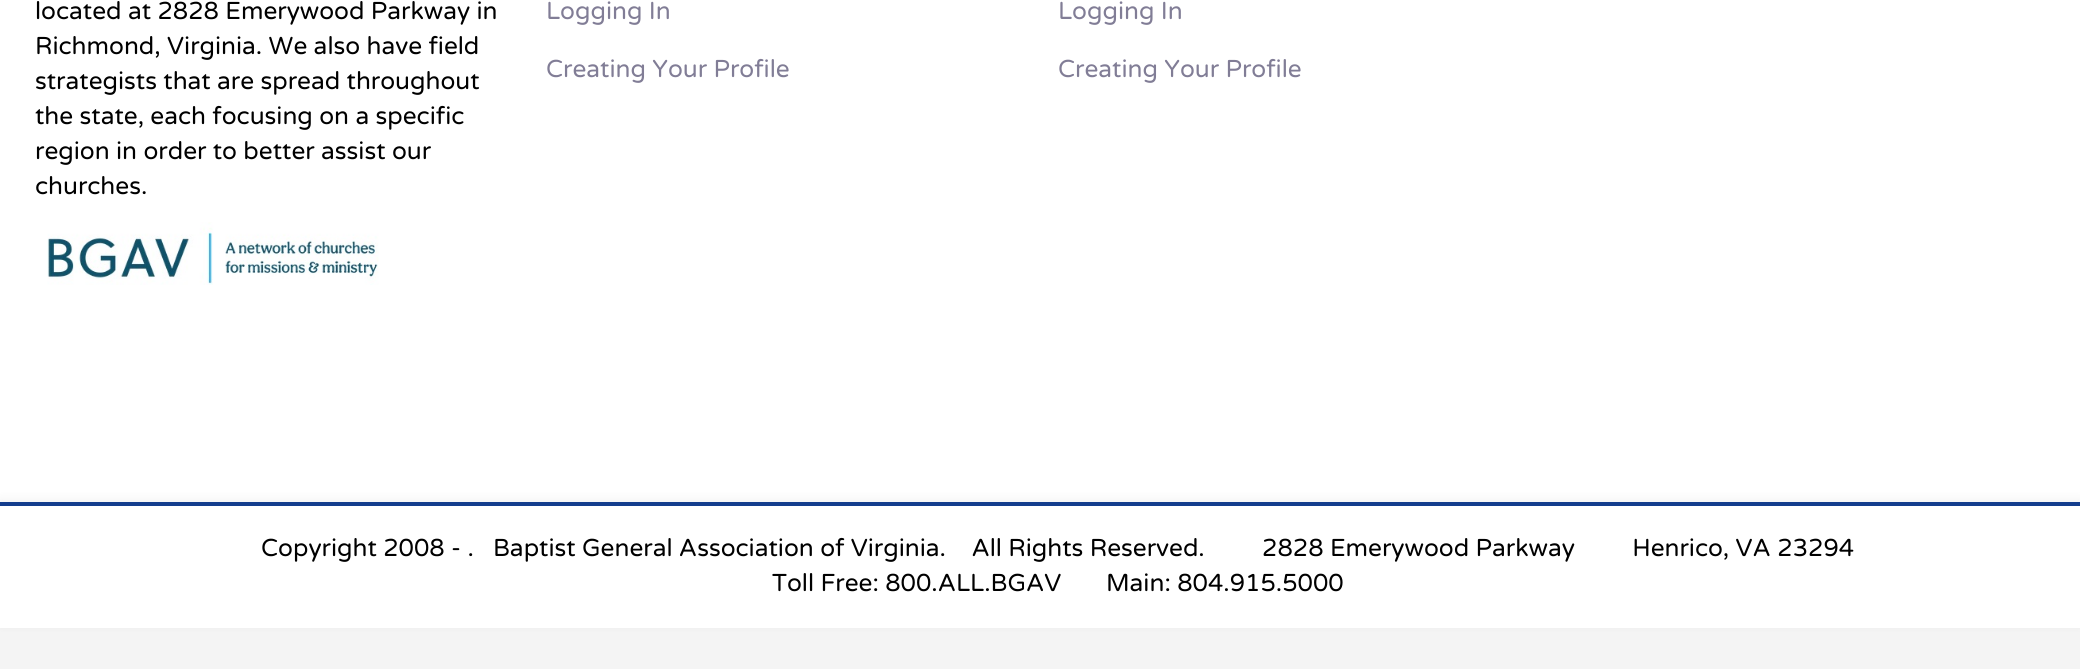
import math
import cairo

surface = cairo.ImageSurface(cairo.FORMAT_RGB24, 2080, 669)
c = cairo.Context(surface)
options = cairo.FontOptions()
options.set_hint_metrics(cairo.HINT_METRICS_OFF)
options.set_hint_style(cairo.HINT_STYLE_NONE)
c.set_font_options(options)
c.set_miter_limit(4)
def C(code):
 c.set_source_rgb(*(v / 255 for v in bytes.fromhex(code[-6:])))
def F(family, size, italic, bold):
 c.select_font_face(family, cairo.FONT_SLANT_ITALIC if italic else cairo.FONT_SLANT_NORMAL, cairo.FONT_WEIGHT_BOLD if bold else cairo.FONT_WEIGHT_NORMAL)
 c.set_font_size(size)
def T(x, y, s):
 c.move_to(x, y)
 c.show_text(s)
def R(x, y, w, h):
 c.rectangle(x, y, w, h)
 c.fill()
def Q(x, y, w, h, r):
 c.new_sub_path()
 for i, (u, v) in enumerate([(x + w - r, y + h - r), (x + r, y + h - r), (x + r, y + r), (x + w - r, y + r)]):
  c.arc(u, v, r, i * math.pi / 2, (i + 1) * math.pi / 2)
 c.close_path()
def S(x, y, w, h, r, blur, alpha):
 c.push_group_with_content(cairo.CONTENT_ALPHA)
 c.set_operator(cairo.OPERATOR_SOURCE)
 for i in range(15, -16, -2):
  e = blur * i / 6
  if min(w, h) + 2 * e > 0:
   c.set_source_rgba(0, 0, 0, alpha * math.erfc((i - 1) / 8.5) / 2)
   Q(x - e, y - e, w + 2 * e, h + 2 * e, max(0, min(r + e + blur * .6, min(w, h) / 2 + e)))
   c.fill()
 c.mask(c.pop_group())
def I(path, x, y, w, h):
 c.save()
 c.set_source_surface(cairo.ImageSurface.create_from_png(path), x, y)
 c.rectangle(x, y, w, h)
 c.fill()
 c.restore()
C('f4f4f4')
c.paint()
C('ffffff')
R(0,0,2080,502)
F('Varela Round',24.5,0,0)
C('000000')
T(35,19,'located at 2828 Emerywood Parkway in')
T(35,54,'Richmond, Virginia. We also have field')
T(35,89,'strategists that are spread throughout')
T(35,124,'the state, each focusing on a specific')
T(35,159,'region in order to better assist our')
T(35,194,'churches.')
I('1.png',47,222,332,63)
C('817d96')
T(546,19,'Logging In')
T(546,77,'Creating Your Profile')
T(1058,19,'Logging In')
T(1058,77,'Creating Your Profile')
C('000000')
S(0,499,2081,126,0,4.5,.05)
C('ffffff')
R(0,506,2080,122)
C('143d8d')
R(0,502,2080,4)
C('000000')
T(261,556,'Copyright 2008 - .   Baptist General Association of Virginia.    All Rights Reserved.         2828 Emerywood Parkway         Henrico, VA 23294')
T(772,591,'Toll Free: 800.ALL.BGAV       Main: 804.915.5000')
surface.write_to_png('o.png')
